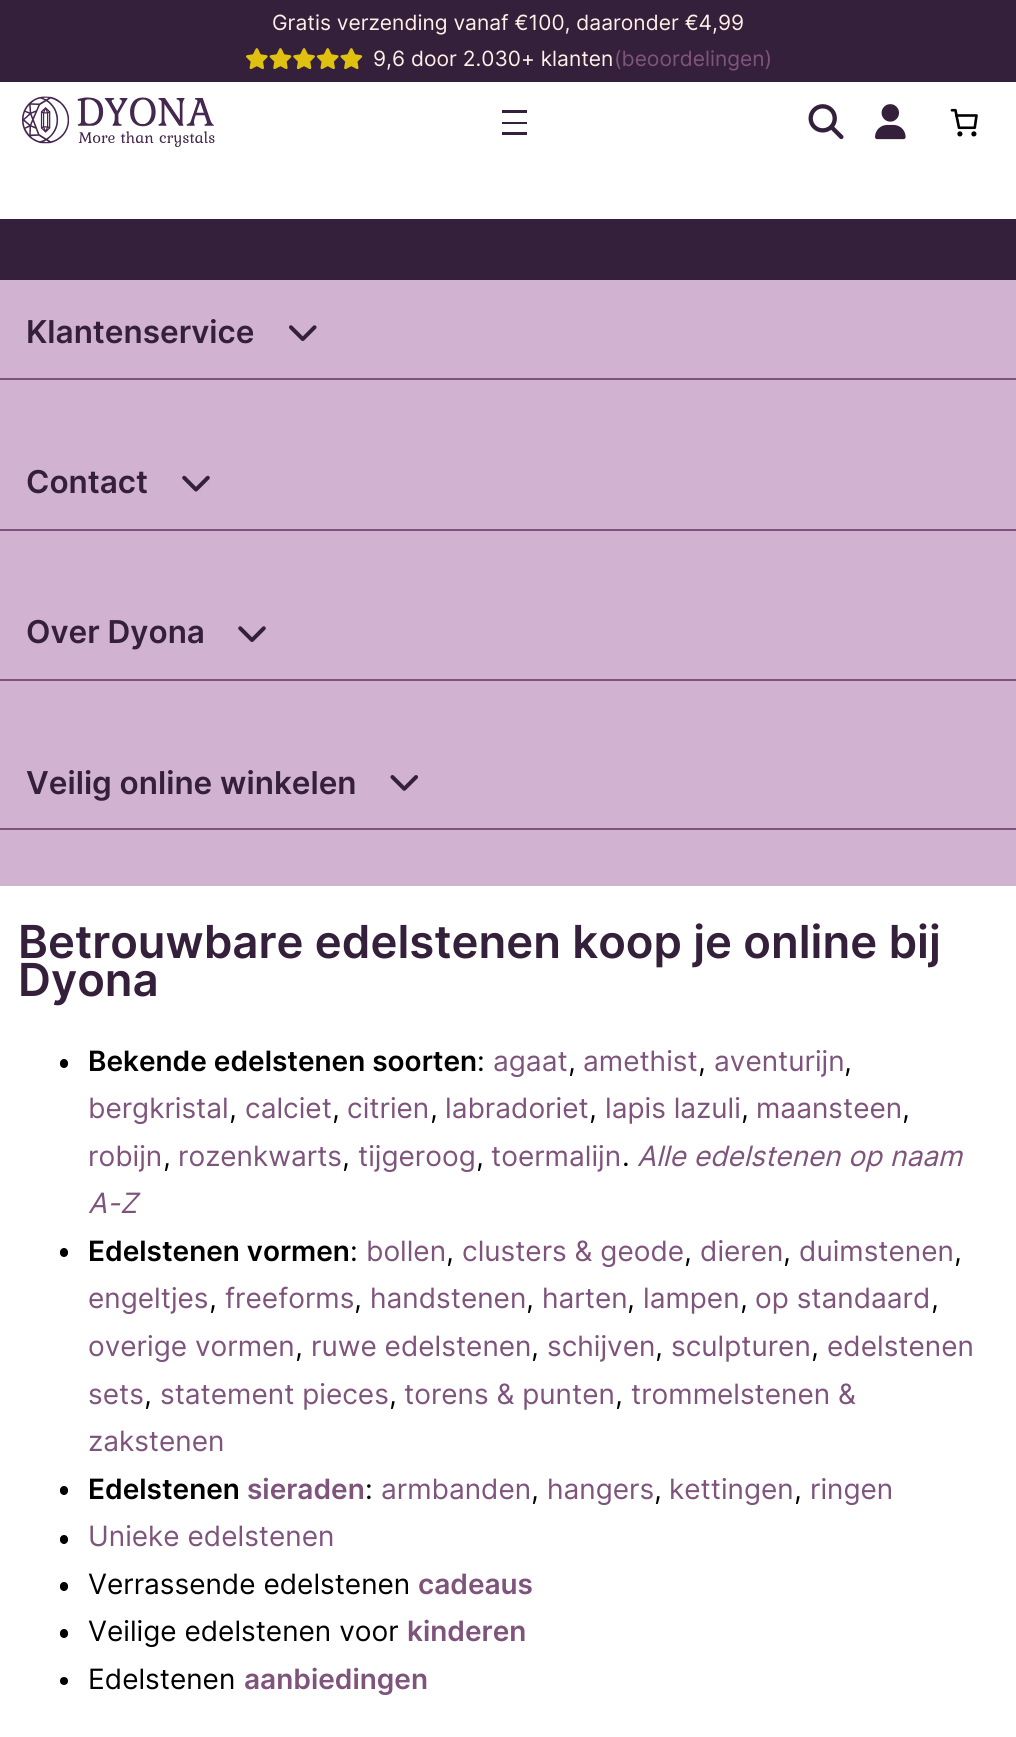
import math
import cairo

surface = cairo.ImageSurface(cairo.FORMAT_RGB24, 1016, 1737)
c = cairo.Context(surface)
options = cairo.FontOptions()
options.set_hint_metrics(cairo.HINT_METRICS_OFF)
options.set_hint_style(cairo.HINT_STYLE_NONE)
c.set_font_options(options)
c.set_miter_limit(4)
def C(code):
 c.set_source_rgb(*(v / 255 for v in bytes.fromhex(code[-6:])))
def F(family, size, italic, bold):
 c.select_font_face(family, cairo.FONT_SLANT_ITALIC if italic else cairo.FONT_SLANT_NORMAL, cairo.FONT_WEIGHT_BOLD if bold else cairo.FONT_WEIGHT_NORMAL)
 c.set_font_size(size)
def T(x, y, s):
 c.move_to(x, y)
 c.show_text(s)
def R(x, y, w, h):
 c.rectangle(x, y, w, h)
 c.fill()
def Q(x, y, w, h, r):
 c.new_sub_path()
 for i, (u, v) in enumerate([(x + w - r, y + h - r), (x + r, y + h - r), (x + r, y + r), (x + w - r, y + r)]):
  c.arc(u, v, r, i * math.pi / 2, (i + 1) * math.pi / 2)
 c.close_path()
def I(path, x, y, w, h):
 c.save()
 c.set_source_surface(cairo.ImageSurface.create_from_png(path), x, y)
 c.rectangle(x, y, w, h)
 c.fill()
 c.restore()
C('ffffff')
c.paint()
C('35203b')
R(0,0,1016,82)
F('Inter',21,0,0)
C('ffefe6')
T(272,30,'Gratis verzending vanaf €100, daaronder €4,99')
I('1.png',246,48,117,22)
T(373,66,'9,6 door 2.030+ klanten')
C('7f547c')
T(614,66,'(beoordelingen)')
I('2.png',22,96,193,51)
C('35203b')
R(502,110,25,3)
R(502,122,25,2)
R(502,132,25,3)
I('3.png',808,104,36,36)
I('4.png',875,104,31,36)
I('5.png',950,108,28,29)
R(0,219,1016,61)
C('d1b2d0')
R(0,280,1016,606)
C('7f547c')
R(0,378,1016,2)
F('Inter SemiBold',31.5,0,0)
C('35203b')
T(26,343,'Klantenservice')
I('6.png',289,325,28,16)
C('7f547c')
R(0,529,1016,2)
C('35203b')
T(26,493,'Contact')
I('7.png',182,475,28,17)
C('7f547c')
R(0,679,1016,2)
C('35203b')
T(26,643,'Over Dyona')
I('8.png',238,626,28,16)
C('7f547c')
R(0,828,1016,2)
C('35203b')
T(26,794,'Veilig online winkelen')
I('9.png',390,775,28,16)
F('Inter SemiBold',45.5,0,0)
T(18,958,'Betrouwbare edelstenen koop je online bij')
T(18,996,'Dyona')
C('000000')
Q(60,1059,8,9,4)
c.fill()
F('Inter SemiBold',28,0,0)
T(88,1071,'Bekende edelstenen soorten')
F('Inter',28,0,0)
T(477,1071,':')
C('7f547c')
T(493,1071,'agaat')
T(583,1071,'amethist')
T(714,1071,'aventurijn')
C('000000')
T(568,1071,',')
T(698,1071,',')
T(844,1071,',')
C('7f547c')
T(88,1118,'bergkristal')
C('000000')
T(229,1118,',')
C('7f547c')
T(245,1118,'calciet')
C('000000')
T(332,1118,',')
C('7f547c')
T(347,1118,'citrien')
C('000000')
T(430,1118,',')
C('7f547c')
T(445,1118,'labradoriet')
C('000000')
T(589,1118,',')
C('7f547c')
T(605,1118,'lapis lazuli')
C('000000')
T(741,1118,',')
C('7f547c')
T(756,1118,'maansteen')
C('000000')
T(902,1118,',')
C('7f547c')
T(88,1166,'robijn')
C('000000')
T(163,1166,',')
C('7f547c')
T(178,1166,'rozenkwarts')
C('000000')
T(342,1166,',')
C('7f547c')
T(358,1166,'tijgeroog')
C('000000')
T(476,1166,',')
C('7f547c')
T(491,1166,'toermalijn')
C('000000')
T(622,1166,'.')
F('Inter',28,1,0)
C('7f547c')
T(637,1166,'Alle edelstenen op naam')
T(88,1213,'A-Z')
C('000000')
Q(60,1248,8,9,4)
c.fill()
F('Inter SemiBold',28,0,0)
T(88,1261,'Edelstenen vormen')
F('Inter',28,0,0)
T(350,1261,':')
C('7f547c')
T(366,1261,'bollen')
T(462,1261,'clusters & geode')
T(700,1261,'dieren')
T(799,1261,'duimstenen')
C('000000')
T(446,1261,',')
T(684,1261,',')
T(783,1261,',')
T(954,1261,',')
C('7f547c')
T(88,1308,'engeltjes')
C('000000')
T(209,1308,',')
C('7f547c')
T(225,1308,'freeforms')
C('000000')
T(354,1308,',')
C('7f547c')
T(370,1308,'handstenen')
C('000000')
T(526,1308,',')
C('7f547c')
T(542,1308,'harten')
C('000000')
T(627,1308,',')
C('7f547c')
T(643,1308,'lampen')
C('000000')
T(740,1308,',')
C('7f547c')
T(755,1308,'op standaard')
C('000000')
T(931,1308,',')
C('7f547c')
T(88,1356,'overige vormen')
C('000000')
T(295,1356,',')
C('7f547c')
T(311,1356,'ruwe edelstenen')
C('000000')
T(531,1356,',')
C('7f547c')
T(547,1356,'schijven')
C('000000')
T(655,1356,',')
C('7f547c')
T(671,1356,'sculpturen')
C('000000')
T(811,1356,',')
C('7f547c')
T(827,1356,'edelstenen')
T(88,1404,'sets')
C('000000')
T(144,1404,',')
C('7f547c')
T(160,1404,'statement pieces')
C('000000')
T(389,1404,',')
C('7f547c')
T(404,1404,'torens & punten')
C('000000')
T(615,1404,',')
C('7f547c')
T(631,1404,'trommelstenen &')
T(88,1451,'zakstenen')
C('000000')
Q(60,1486,8,9,4)
c.fill()
F('Inter SemiBold',28,0,0)
T(88,1499,'Edelstenen')
C('7f547c')
T(247,1499,'sieraden')
F('Inter',28,0,0)
C('000000')
T(365,1499,':')
C('7f547c')
T(381,1499,'armbanden')
T(547,1499,'hangers')
T(669,1499,'kettingen')
T(810,1499,'ringen')
C('000000')
T(531,1499,',')
T(654,1499,',')
T(794,1499,',')
Q(60,1535,8,9,4)
c.fill()
C('7f547c')
T(88,1546,'Unieke edelstenen')
C('000000')
Q(60,1582,8,9,4)
c.fill()
T(88,1594,'Verrassende edelstenen')
F('Inter SemiBold',28,0,0)
C('7f547c')
T(418,1594,'cadeaus')
C('000000')
Q(60,1629,8,9,4)
c.fill()
F('Inter',28,0,0)
T(88,1641,'Veilige edelstenen voor')
F('Inter SemiBold',28,0,0)
C('7f547c')
T(407,1641,'kinderen')
C('000000')
c.new_path()
c.arc(64,1681,4,0,2 * math.pi)
c.fill()
F('Inter',28,0,0)
T(88,1689,'Edelstenen')
F('Inter SemiBold',28,0,0)
C('7f547c')
T(244,1689,'aanbiedingen')
surface.write_to_png('o.png')
